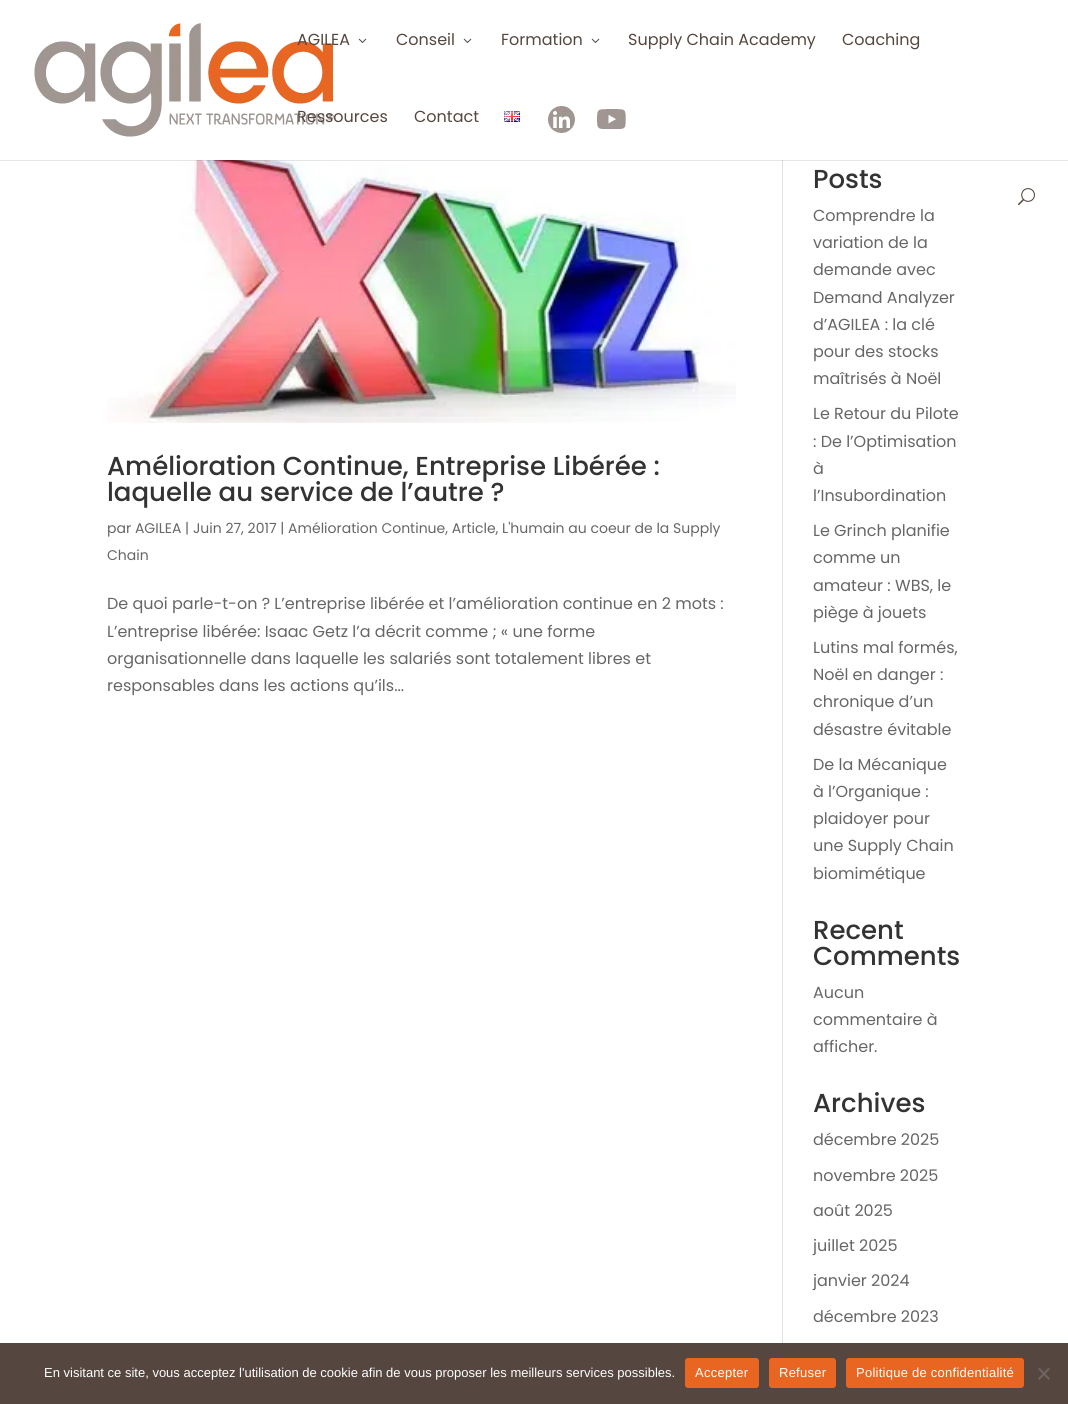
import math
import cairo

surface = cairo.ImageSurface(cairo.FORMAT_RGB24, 1068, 1404)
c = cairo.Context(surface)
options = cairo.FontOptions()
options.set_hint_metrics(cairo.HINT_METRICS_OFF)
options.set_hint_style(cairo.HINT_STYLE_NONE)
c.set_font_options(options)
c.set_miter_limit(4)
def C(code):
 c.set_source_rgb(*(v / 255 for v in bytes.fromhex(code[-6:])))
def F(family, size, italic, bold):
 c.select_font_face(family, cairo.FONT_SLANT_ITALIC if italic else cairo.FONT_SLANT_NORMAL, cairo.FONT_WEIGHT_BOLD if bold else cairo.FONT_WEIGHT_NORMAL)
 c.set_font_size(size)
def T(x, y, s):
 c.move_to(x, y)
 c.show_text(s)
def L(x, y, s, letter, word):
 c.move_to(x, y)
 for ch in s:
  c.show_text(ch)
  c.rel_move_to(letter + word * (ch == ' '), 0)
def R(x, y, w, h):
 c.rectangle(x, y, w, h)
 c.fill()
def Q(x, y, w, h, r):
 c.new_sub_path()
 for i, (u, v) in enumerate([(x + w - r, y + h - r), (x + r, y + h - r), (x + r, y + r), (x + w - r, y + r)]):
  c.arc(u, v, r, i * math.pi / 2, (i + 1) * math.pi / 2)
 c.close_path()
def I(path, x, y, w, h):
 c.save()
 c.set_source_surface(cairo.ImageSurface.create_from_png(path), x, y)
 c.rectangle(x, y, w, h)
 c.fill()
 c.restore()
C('ffffff')
c.paint()
C('e2e2e2')
R(782,160,1,1183)
I('7.png',107,160,629,263)
c.set_source_rgba(0,0,0,0.1)
R(0,160,1068,1)
I('1.png',34,23,300,114)
F('Poppins',16,0,0)
C('55473f')
T(297,45,'AGILEA')
I('2.png',358,38,9,5)
T(396,45,'Conseil')
I('2.png',463,38,9,5)
T(501,45,'Formation')
I('2.png',591,38,9,5)
T(628,45,'Supply Chain Academy')
T(842,45,'Coaching')
T(297,122,'Ressources')
T(414,122,'Contact')
I('3.png',504,111,16,11)
I('4.png',548,106,27,27)
I('5.png',597,109,29,21)
I('6.png',1018,188,17,18)
F('Poppins Medium',26,0,0)
C('333333')
T(107,475,'Amélioration Continue, Entreprise Libérée :')
T(107,501,'laquelle au service de l’autre ?')
F('Poppins',14,0,0)
C('666666')
T(107,533,'par AGILEA | Juin 27, 2017 | Amélioration Continue, Article, L\'humain au coeur de la Supply')
T(107,560,'Chain')
F('Poppins',16,0,0)
T(107,609,'De quoi parle-t-on ? L’entreprise libérée et l’amélioration continue en 2 mots :')
T(107,637,'L’entreprise libérée: Isaac Getz l’a décrit comme ; « une forme')
T(107,664,'organisationnelle dans laquelle les salariés sont totalement libres et')
T(107,691,'responsables dans les actions qu’ils...')
F('Poppins Medium',26,0,0)
C('333333')
T(813,188,'Posts')
F('Poppins',16,0,0)
C('666666')
T(813,221,'Comprendre la')
T(813,248,'variation de la')
T(813,275,'demande avec')
T(813,303,'Demand Analyzer')
T(813,330,'d’AGILEA : la clé')
T(813,357,'pour des stocks')
T(813,384,'maîtrisés à Noël')
T(813,419,'Le Retour du Pilote')
T(813,447,': De l’Optimisation')
T(813,474,'à')
T(813,501,'l’Insubordination')
T(813,536,'Le Grinch planifie')
T(813,563,'comme un')
T(813,591,'amateur : WBS, le')
T(813,618,'piège à jouets')
T(813,653,'Lutins mal formés,')
T(813,680,'Noël en danger :')
T(813,707,'chronique d’un')
T(813,735,'désastre évitable')
T(813,770,'De la Mécanique')
T(813,797,'à l’Organique :')
T(813,824,'plaidoyer pour')
T(813,851,'une Supply Chain')
T(813,879,'biomimétique')
F('Poppins Medium',26,0,0)
C('333333')
T(813,939,'Recent')
T(813,965,'Comments')
F('Poppins',16,0,0)
C('666666')
T(813,998,'Aucun')
T(813,1025,'commentaire à')
T(813,1052,'afficher.')
F('Poppins Medium',26,0,0)
C('333333')
T(813,1112,'Archives')
F('Poppins',16,0,0)
C('666666')
T(813,1145,'décembre 2025')
T(813,1181,'novembre 2025')
T(813,1216,'août 2025')
T(813,1251,'juillet 2025')
T(813,1286,'janvier 2024')
T(813,1322,'décembre 2023')
C('55473f')
R(0,1343,1068,61)
F('Liberation Sans',13,0,0)
C('ffffff')
T(44,1377,'En visitant ce site, vous acceptez l\'utilisation de cookie afin de vous proposer les meilleurs services possibles.')
C('e96622')
Q(685,1358,74,30,3)
c.fill()
C('ffffff')
L(695,1377,'Accepter',.25,0)
C('e96622')
Q(769,1358,67,30,3)
c.fill()
C('ffffff')
L(779,1377,'Refuser',.25,0)
C('e96622')
Q(846,1358,178,30,3)
c.fill()
C('ffffff')
L(856,1377,'Politique de confidentialité',.25,0)
C('6b6460')
c.new_path()
c.move_to(1048.5,1367.5)
c.line_to(1050,1369)
c.line_to(1039.5,1380)
c.line_to(1038,1378.5)
c.close_path()
c.fill()
c.new_path()
c.move_to(1038,1369)
c.line_to(1039.5,1367.5)
c.line_to(1050,1378.5)
c.line_to(1048.5,1380)
c.close_path()
c.fill()
surface.write_to_png('o.png')
